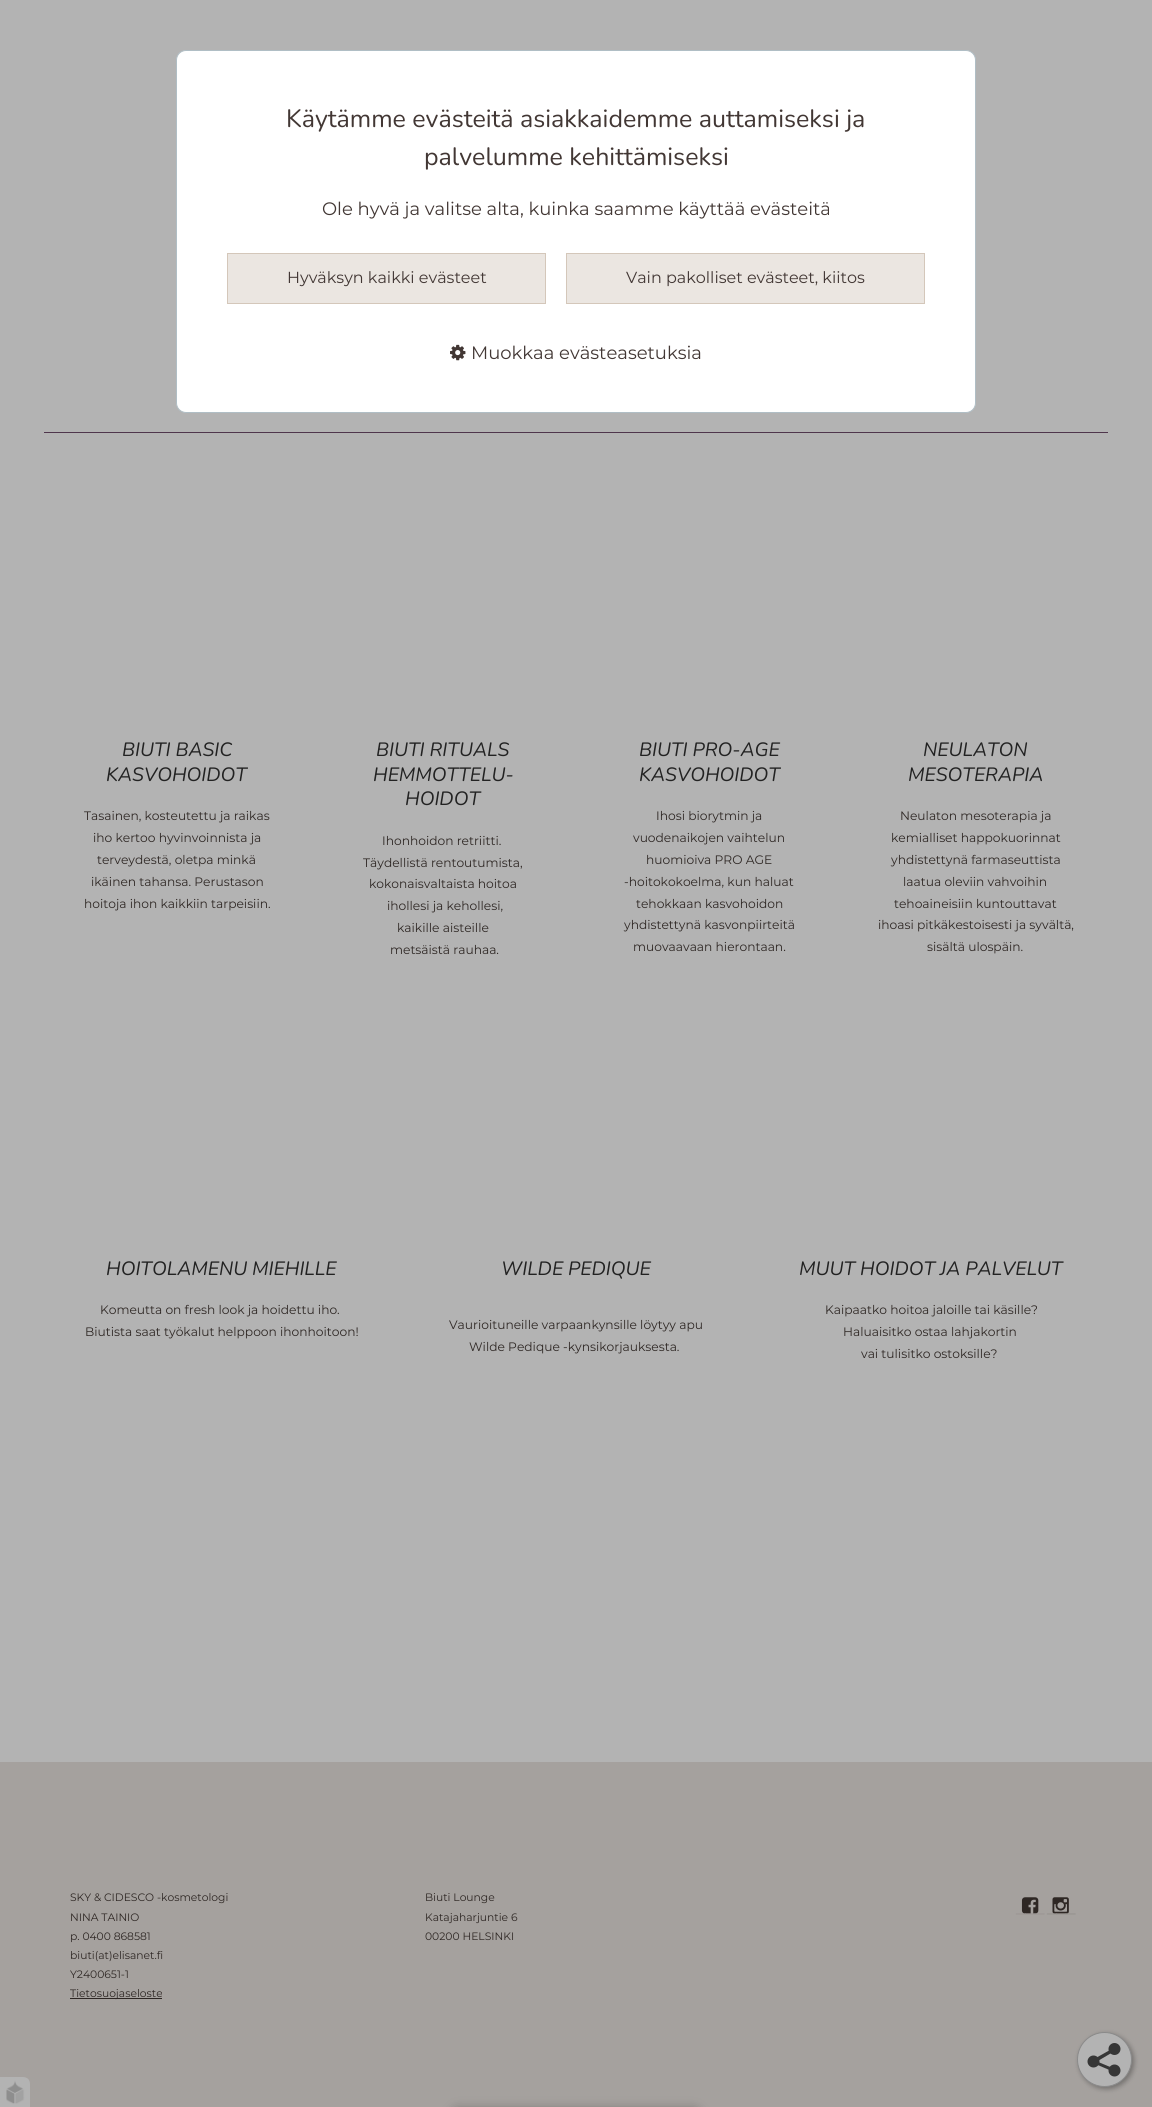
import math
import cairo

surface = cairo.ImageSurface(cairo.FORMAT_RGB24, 1152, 2107)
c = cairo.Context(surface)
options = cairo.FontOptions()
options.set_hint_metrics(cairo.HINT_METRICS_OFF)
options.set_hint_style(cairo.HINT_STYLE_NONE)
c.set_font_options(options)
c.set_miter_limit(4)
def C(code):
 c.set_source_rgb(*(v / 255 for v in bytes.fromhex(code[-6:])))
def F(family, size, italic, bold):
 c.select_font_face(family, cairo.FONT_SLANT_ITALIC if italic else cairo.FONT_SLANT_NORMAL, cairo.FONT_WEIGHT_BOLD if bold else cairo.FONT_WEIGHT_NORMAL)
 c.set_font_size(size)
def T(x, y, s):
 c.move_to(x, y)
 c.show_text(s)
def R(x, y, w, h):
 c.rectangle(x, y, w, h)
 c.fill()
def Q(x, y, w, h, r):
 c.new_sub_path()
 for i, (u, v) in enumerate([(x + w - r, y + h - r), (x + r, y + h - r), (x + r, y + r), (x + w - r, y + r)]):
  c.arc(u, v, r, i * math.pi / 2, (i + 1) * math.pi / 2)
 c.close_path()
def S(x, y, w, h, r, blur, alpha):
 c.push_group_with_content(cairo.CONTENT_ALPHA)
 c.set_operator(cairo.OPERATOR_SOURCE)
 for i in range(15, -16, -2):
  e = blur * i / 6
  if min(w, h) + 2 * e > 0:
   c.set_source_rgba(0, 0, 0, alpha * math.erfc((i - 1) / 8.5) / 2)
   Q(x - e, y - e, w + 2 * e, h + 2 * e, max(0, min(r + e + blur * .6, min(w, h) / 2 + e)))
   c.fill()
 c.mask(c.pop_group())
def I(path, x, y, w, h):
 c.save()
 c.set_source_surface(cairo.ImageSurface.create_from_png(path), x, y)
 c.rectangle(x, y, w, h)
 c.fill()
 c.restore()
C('b3b3b3')
c.paint()
C('ffffff')
Q(176.5,50.5,799,362,9.5)
c.fill_preserve()
C('b0bec5')
c.set_line_width(1)
c.stroke()
F('Nunito',25,0,0)
C('423734')
T(286,127,'Käytämme evästeitä asiakkaidemme auttamiseksi ja')
T(424,165,'palvelumme kehittämiseksi')
F('Montserrat',18,0,0)
T(322,215,'Ole hyvä ja valitse alta, kuinka saamme käyttää evästeitä')
C('ebe6e1')
c.rectangle(227.5,253.5,318,50)
c.fill_preserve()
C('d4c7ba')
c.stroke()
F('Montserrat',16,0,0)
C('423734')
T(287,283,'Hyväksyn kaikki evästeet')
C('ebe6e1')
c.rectangle(566.5,253.5,358,50)
c.fill_preserve()
C('d4c7ba')
c.stroke()
C('423734')
T(626,283,'Vain pakolliset evästeet, kiitos')
I('1.png',450,344,16,17)
F('Montserrat',18,0,0)
T(471,359,'Muokkaa evästeasetuksia')
C('a5a19e')
R(0,1762,1152,345)
C('000000')
S(449,2107,254,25,10,5,.2)
C('4f364c')
R(44,432,1064,1)
F('Nunito',19.25,1,0)
C('222222')
T(122,756,'BIUTI BASIC')
T(106,781,'KASVOHOIDOT')
F('Montserrat',12.25,0,0)
C('2e2724')
T(84,820,'Tasainen, kosteutettu ja raikas')
T(93,842,'iho kertoo hyvinvoinnista ja')
T(97,864,'terveydestä, oletpa minkä')
T(91,886,'ikäinen tahansa. Perustason')
T(84,908,'hoitoja ihon kaikkiin tarpeisiin.')
F('Nunito',19.25,1,0)
C('222222')
T(376,756,'BIUTI RITUALS')
T(373,781,'HEMMOTTELU-')
T(405,805,'HOIDOT')
F('Montserrat',12.25,0,0)
C('2e2724')
T(382,845,'Ihonhoidon retriitti.')
T(363,867,'Täydellistä rentoutumista,')
T(369,888,'kokonaisvaltaista hoitoa')
T(387,910,'ihollesi ja kehollesi,')
T(397,932,'kaikille aisteille')
T(390,954,'metsäistä rauhaa.')
F('Nunito',19.25,1,0)
C('222222')
T(639,756,'BIUTI PRO-AGE')
T(639,781,'KASVOHOIDOT')
F('Montserrat',12.25,0,0)
C('2e2724')
T(656,820,'Ihosi biorytmin ja')
T(633,842,'vuodenaikojen vaihtelun')
T(646,864,'huomioiva PRO AGE')
T(624,886,'-hoitokokoelma, kun haluat')
T(636,908,'tehokkaan kasvohoidon')
T(624,929,'yhdistettynä kasvonpiirteitä')
T(633,951,'muovaavaan hierontaan.')
F('Nunito',19.25,1,0)
C('222222')
T(923,756,'NEULATON')
T(908,781,'MESOTERAPIA')
F('Montserrat',12.25,0,0)
C('2e2724')
T(900,820,'Neulaton mesoterapia ja')
T(891,842,'kemialliset happokuorinnat')
T(891,864,'yhdistettynä farmaseuttista')
T(903,886,'laatua oleviin vahvoihin')
T(894,908,'tehoaineisiin kuntouttavat')
T(878,929,'ihoasi pitkäkestoisesti ja syvältä,')
T(927,951,'sisältä ulospäin.')
F('Nunito',19.25,1,0)
C('222222')
T(106,1275,'HOITOLAMENU MIEHILLE')
F('Montserrat',12.25,0,0)
C('2e2724')
T(100,1314,'Komeutta on fresh look ja hoidettu iho.')
T(85,1336,'Biutista saat työkalut helppoon ihonhoitoon!')
F('Nunito',19.25,1,0)
C('222222')
T(501,1275,'WILDE PEDIQUE')
F('Montserrat',12.25,0,0)
C('2e2724')
T(449,1329,'Vaurioituneille varpaankynsille löytyy apu')
T(469,1351,'Wilde Pedique -kynsikorjauksesta.')
F('Nunito',19.25,1,0)
C('222222')
T(799,1275,'MUUT HOIDOT JA PALVELUT')
F('Montserrat',12.25,0,0)
C('2e2724')
T(825,1314,'Kaipaatko hoitoa jaloille tai käsille?')
T(843,1336,'Haluaisitko ostaa lahjakortin')
T(861,1358,'vai tulisitko ostoksille?')
F('Montserrat',10.75,0,0)
T(70,1901,'SKY & CIDESCO -kosmetologi')
T(70,1921,'NINA TAINIO')
T(70,1940,'p. 0400 868581')
T(70,1959,'biuti(at)elisanet.fi')
T(70,1978,'Y2400651-1')
R(70,1998,92,1)
T(70,1997,'Tietosuojaseloste')
T(425,1901,'Biuti Lounge')
T(425,1921,'Katajaharjuntie 6')
T(425,1940,'00200 HELSINKI')
I('2.png',1021,1897,18,17)
F('Liberation Serif',19,0,0)
C('999492')
T(1016,1912,'___')
I('3.png',1052,1897,17,17)
C('94908c')
T(1047,1912,'___')
C('000000')
S(1079,2034,55,55,27.5,2.5,.3)
C('b3b3b3')
c.arc(1104.5,2059.5,27,0,2 * math.pi)
c.fill_preserve()
C('8a8a8a')
c.stroke()
C('363636')
c.arc(1114.5,2049,6,0,2 * math.pi)
c.fill()
c.arc(1093.5,2061.5,6,0,2 * math.pi)
c.fill()
c.arc(1114.5,2070.5,6,0,2 * math.pi)
c.fill()
c.new_path()
c.move_to(1114,2072)
c.line_to(1089.5,2061.5)
c.line_to(1113.5,2048)
c.line_to(1115.5,2050.5)
c.line_to(1097,2061.5)
c.line_to(1115,2069)
c.close_path()
c.fill()
C('b3b3b3')
c.new_path()
c.move_to(0,2077)
c.line_to(23,2077)
c.curve_to(27,2077,30,2080,30,2084)
c.line_to(30,2107)
c.line_to(0,2107)
c.close_path()
c.fill()
I('4.png',6,2078,23,26)
surface.write_to_png('o.png')
